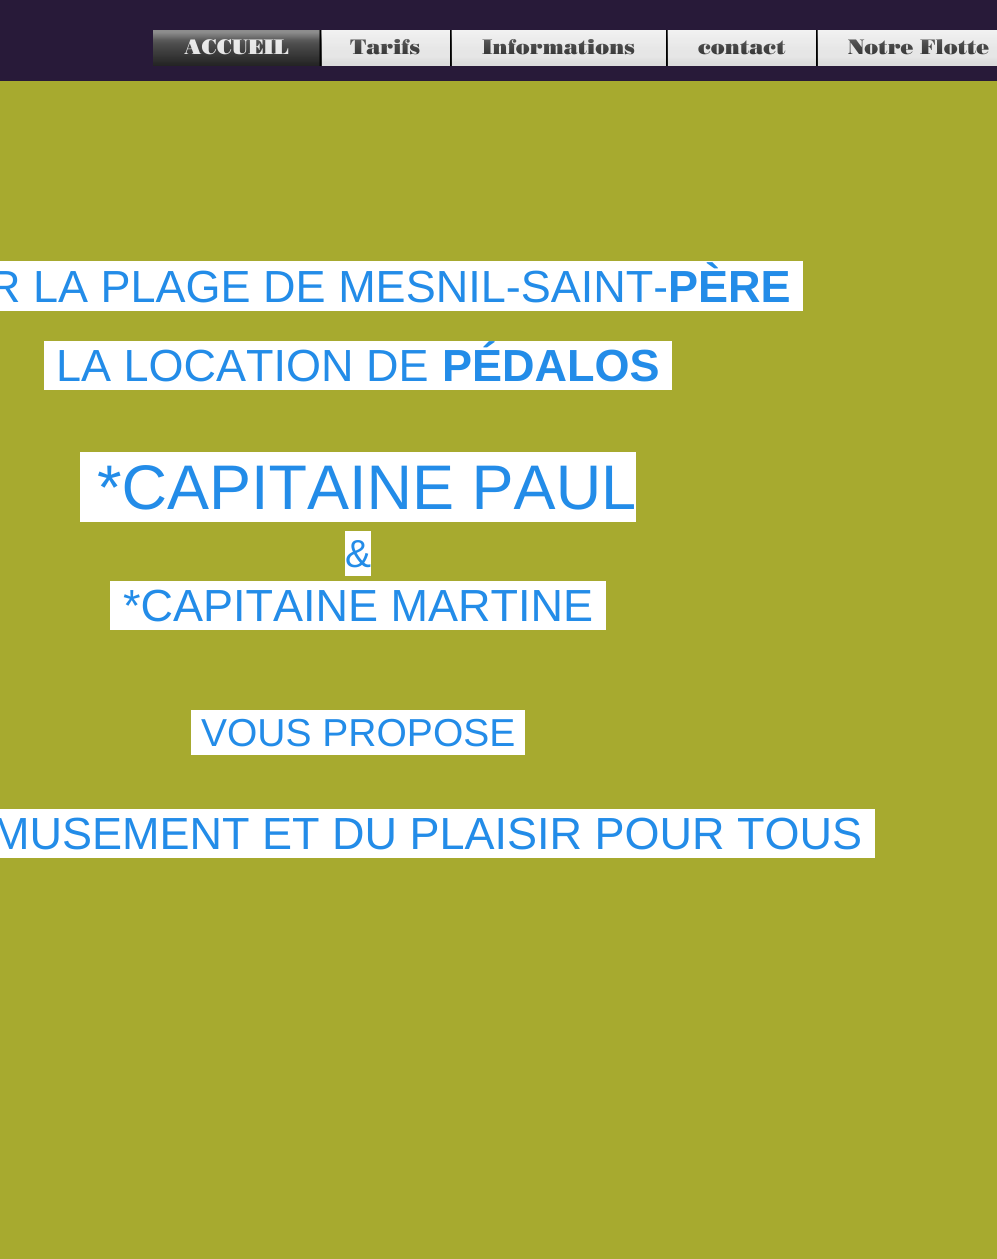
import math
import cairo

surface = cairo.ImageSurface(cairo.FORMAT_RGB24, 997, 1259)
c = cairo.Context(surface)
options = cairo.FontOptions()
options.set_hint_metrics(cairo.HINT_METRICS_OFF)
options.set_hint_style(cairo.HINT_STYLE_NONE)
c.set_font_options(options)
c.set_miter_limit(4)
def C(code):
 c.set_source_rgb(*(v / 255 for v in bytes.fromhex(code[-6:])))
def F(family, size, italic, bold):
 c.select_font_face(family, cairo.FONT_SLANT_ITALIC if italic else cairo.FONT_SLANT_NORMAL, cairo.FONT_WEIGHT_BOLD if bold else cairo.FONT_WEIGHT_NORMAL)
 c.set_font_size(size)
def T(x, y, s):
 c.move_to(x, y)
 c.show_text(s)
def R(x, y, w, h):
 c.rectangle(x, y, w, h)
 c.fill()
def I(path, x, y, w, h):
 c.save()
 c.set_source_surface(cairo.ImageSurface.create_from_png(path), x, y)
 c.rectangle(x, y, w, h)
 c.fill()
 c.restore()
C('a7aa2f')
c.paint()
C('281a39')
R(0,0,997,81)
C('000000')
R(153,30,169,36)
F('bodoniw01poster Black',21,0,0)
C('ffffff')
T(184,54,'ACCUEIL')
I('1.png',153,30,167,36)
I('2.png',153,30,166,36)
R(322,30,128,36)
C('000000')
T(350,54,'Tarifs')
I('3.png',321,30,99,36)
I('4.png',321,30,129,36)
C('ffffff')
R(452,30,214,36)
C('000000')
R(450,30,2,36)
T(482,54,'Informations')
I('5.png',451,30,184,36)
I('6.png',452,30,214,36)
C('ffffff')
R(668,30,148,36)
C('000000')
R(666,30,2,36)
T(698,54,'contact')
I('7.png',667,30,119,36)
I('8.png',668,30,148,36)
C('ffffff')
R(818,30,179,36)
C('000000')
R(816,30,2,36)
T(848,54,'Notre Flotte')
I('9.png',817,30,172,36)
I('10.png',818,30,179,36)
C('ffffff')
R(0,261,803,50)
F('Liberation Sans',45,0,0)
C('238ce8')
T(-12,302,'R LA PLAGE DE MESNIL-SAINT-')
F('Liberation Sans',45,0,1)
T(668,302,'PÈRE')
C('ffffff')
R(44,341,628,49)
F('Liberation Sans',45,0,0)
C('238ce8')
T(56,381,'LA LOCATION DE')
F('Liberation Sans',45,0,1)
T(442,381,'PÉDALOS')
C('ffffff')
R(80,452,556,70)
F('Liberation Sans',63,0,0)
C('238ce8')
T(97,509,'*CAPITAINE PAUL')
C('ffffff')
R(345,531,26,45)
F('Liberation Sans',39,0,0)
C('238ce8')
T(345,567,'&')
C('ffffff')
R(110,581,496,49)
F('Liberation Sans',45,0,0)
C('238ce8')
T(123,621,'*CAPITAINE MARTINE')
C('ffffff')
R(191,710,334,45)
F('Liberation Sans',39,0,0)
C('238ce8')
T(201,746,'VOUS PROPOSE')
C('ffffff')
R(0,809,875,49)
F('Liberation Sans',45,0,0)
C('238ce8')
T(-8,849,'MUSEMENT ET DU PLAISIR POUR TOUS')
surface.write_to_png('o.png')
